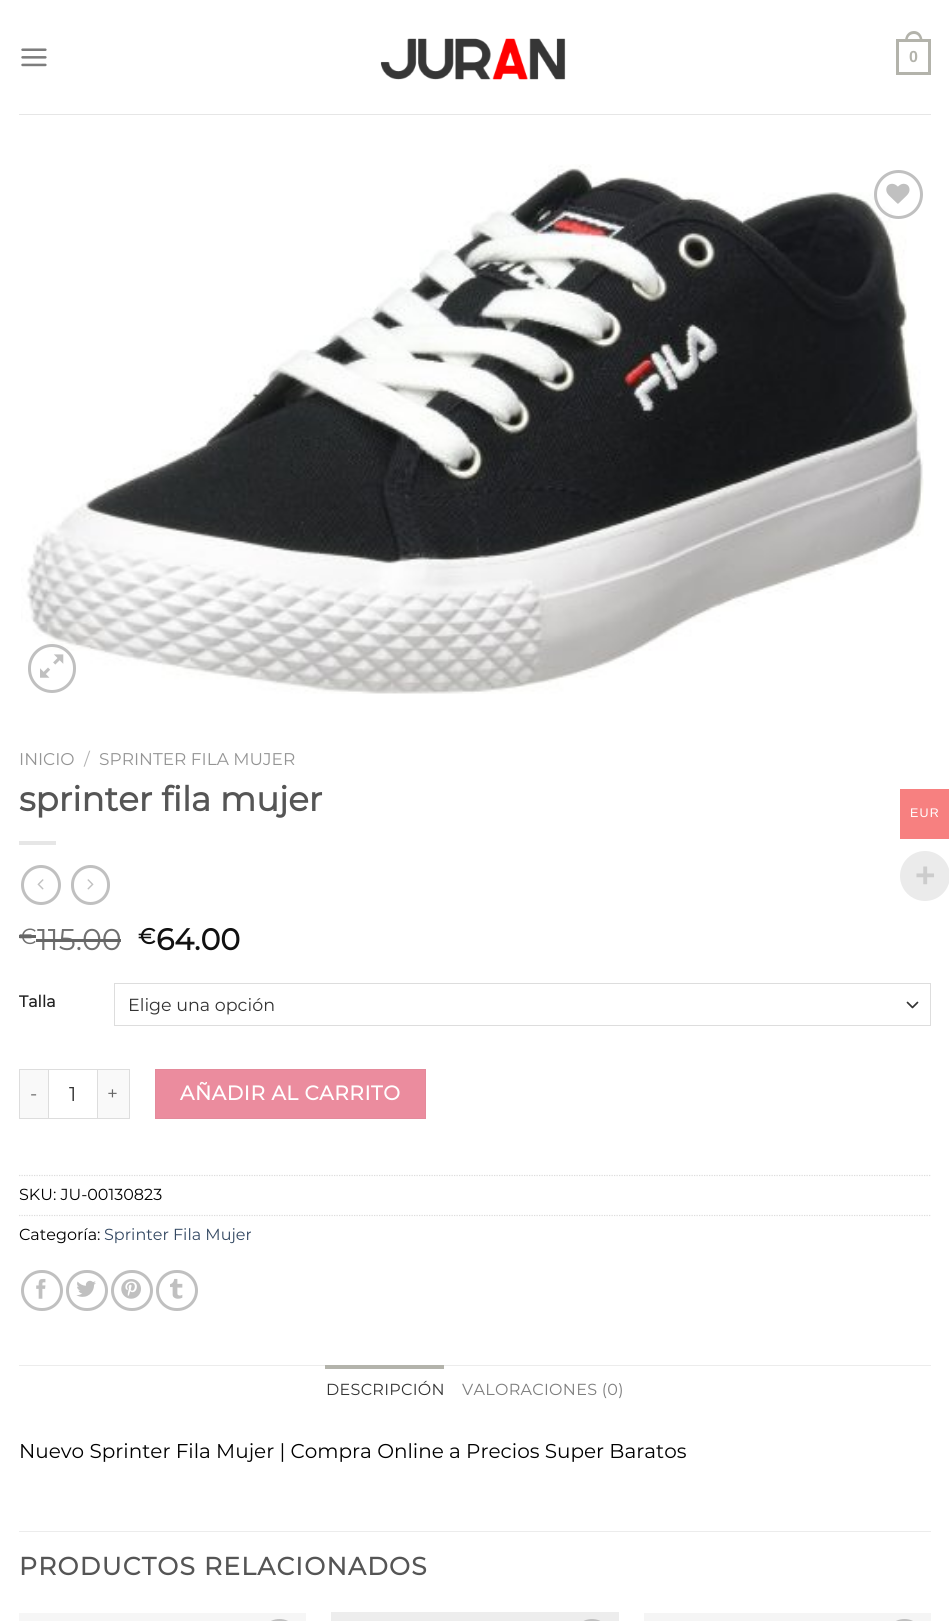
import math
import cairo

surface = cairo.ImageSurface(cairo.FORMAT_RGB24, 949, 1621)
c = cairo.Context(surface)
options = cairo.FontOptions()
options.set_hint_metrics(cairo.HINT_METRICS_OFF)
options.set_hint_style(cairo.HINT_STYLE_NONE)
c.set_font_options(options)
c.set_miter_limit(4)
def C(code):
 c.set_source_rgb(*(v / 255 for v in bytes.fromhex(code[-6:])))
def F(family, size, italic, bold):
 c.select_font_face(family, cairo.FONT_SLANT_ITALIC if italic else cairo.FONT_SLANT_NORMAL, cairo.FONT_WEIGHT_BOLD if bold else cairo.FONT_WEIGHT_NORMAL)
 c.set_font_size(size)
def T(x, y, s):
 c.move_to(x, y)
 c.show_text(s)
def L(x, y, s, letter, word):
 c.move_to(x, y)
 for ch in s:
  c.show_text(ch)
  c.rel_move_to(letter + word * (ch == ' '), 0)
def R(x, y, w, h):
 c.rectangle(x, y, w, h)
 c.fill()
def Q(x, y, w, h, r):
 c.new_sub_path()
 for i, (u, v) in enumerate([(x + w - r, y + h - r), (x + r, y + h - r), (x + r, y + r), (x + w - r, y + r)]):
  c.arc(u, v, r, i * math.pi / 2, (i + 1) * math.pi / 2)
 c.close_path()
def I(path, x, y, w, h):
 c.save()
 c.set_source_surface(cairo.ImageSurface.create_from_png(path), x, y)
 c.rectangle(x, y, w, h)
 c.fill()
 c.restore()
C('ffffff')
c.paint()
I('1.png',21,48,26,19)
I('2.png',380,38,186,42)
c.rectangle(897.5,40.5,32,33)
C('b3b3ab')
c.set_line_width(3)
c.stroke()
c.set_fill_rule(cairo.FILL_RULE_EVEN_ODD)
c.new_path()
c.move_to(914,31)
c.curve_to(919.5,31,922.5,36,922.5,41)
c.line_to(905,41)
c.curve_to(905,36,908,31,914,31)
c.close_path()
c.move_to(914,34)
c.curve_to(918,34,920,37.5,920,41)
c.line_to(907.5,41)
c.curve_to(907.5,37.5,909.5,34,914,34)
c.close_path()
c.fill()
F('Liberation Sans',16,0,1)
T(909,62,'0')
C('e6e6e6')
R(19,114,912,1)
I('3.png',21,164,903,530)
c.arc(898.5,194.5,23,0,2 * math.pi)
C('c0c0c0')
c.stroke()
I('4.png',886,183,24,21)
Q(29.5,645.5,45,46,22.5)
c.stroke()
I('5.png',40,654,24,24)
F('Montserrat',17,0,0)
C('949494')
T(19,765,'INICIO')
C('b2b2b2')
T(84,765,'/')
C('949494')
T(99,765,'SPRINTER FILA MUJER')
F('Montserrat',34,0,1)
C('555555')
T(19,811,'sprinter fila mujer')
C('e6e6e6')
R(19,841,37,4)
c.new_path()
c.arc(41,885,18.5,0,2 * math.pi)
C('c0c0c0')
c.stroke()
I('6.png',37,879,7,11)
Q(72.5,866.5,36,37,18)
c.stroke()
I('7.png',87,879,7,11)
F('Montserrat',22,0,0)
C('707070')
T(19,944,'€')
C('666666')
R(19,935,17,3)
F('Montserrat',30,0,0)
C('707070')
T(37,950,'115.00')
C('666666')
R(36,939,85,3)
F('Montserrat',22,0,1)
C('111111')
T(138,944,'€')
F('Montserrat',30,0,1)
T(156,950,'64.00')
F('Montserrat',16,0,1)
C('222222')
T(19,1007,'Talla')
c.new_path()
c.move_to(907.5,1002.5)
c.line_to(912.5,1007.5)
c.line_to(917.5,1002.5)
C('333333')
c.set_line_width(1.7)
c.set_line_cap(cairo.LINE_CAP_ROUND)
c.set_line_join(cairo.LINE_JOIN_ROUND)
c.stroke()
c.rectangle(114.5,983.5,816,42)
C('dddddd')
c.set_line_width(1)
c.set_line_cap(cairo.LINE_CAP_BUTT)
c.set_line_join(cairo.LINE_JOIN_MITER)
c.stroke()
F('Montserrat',17.5,0,0)
C('333333')
T(128,1011,'Elige una opción')
C('f9f9f9')
R(20,1070,28,48)
C('dddddd')
R(19,1069,29,1)
R(19,1118,29,1)
R(19,1069,1,50)
F('Montserrat',19,0,0)
C('666666')
L(30,1100,'-',1,0)
c.rectangle(48.5,1069.5,49,49)
C('dddddd')
c.stroke()
F('Montserrat',20,0,0)
C('333333')
T(69,1101,'1')
C('f9f9f9')
R(98,1070,31,48)
C('dddddd')
R(98,1069,32,1)
R(129,1069,1,50)
R(98,1118,32,1)
F('Montserrat',19,0,0)
C('666666')
L(107,1100,'+',1,0)
C('eb8c9e')
c.rectangle(155.5,1069.5,270,49)
c.fill_preserve()
C('e48a9b')
c.stroke()
F('Montserrat',20,0,1)
C('ffffff')
L(180,1100,'AÑADIR AL CARRITO',.6,0)
c.new_path()
c.move_to(19,1175.5)
c.line_to(931,1175.5)
C('dddddd')
c.set_line_width(1.2)
c.set_dash([1.25,1.25])
c.stroke()
F('Montserrat',16,0,0)
C('000000')
T(19,1200,'SKU: JU-00130823')
c.new_path()
c.move_to(19,1215.5)
c.line_to(931,1215.5)
C('dddddd')
c.stroke()
C('000000')
T(19,1240,'Categoría:')
C('334862')
T(104,1240,'Sprinter Fila Mujer')
Q(22.5,1271.5,39,38,19)
C('c0c0c0')
c.set_line_width(3)
c.set_dash([])
c.stroke()
I('8.png',36,1278,10,21)
Q(67.5,1271.5,39,38,19)
c.stroke()
I('9.png',76,1280,20,17)
Q(112.5,1271.5,39,38,19)
c.stroke()
I('10.png',121,1279,20,20)
Q(157.5,1271.5,39,38,19)
c.stroke()
I('11.png',170,1278,13,21)
C('ececec')
R(19,1365,912,1)
C('b3b3ab')
R(325,1365,119,4)
C('333333')
L(326,1395,'DESCRIPCIÓN',.3,0)
C('7d7d7d')
L(462,1395,'VALORACIONES (0)',.3,0)
F('Montserrat',20,0,0)
C('000000')
T(19,1458,'Nuevo Sprinter Fila Mujer | Compra Online a Precios Super Baratos')
C('ececec')
R(19,1531,912,1)
F('Montserrat',25,0,1)
C('555555')
L(19,1575,'PRODUCTOS RELACIONADOS',1.25,0)
C('f6f6f6')
R(19,1613,287,8)
Q(261.5,1620.5,36,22,18)
C('c0c0c0')
c.stroke()
C('ededed')
R(331,1612,288,9)
Q(574.5,1620.5,35,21,17.5)
C('c0c0c0')
c.stroke()
C('f5f5f5')
R(644,1613,287,8)
Q(886.5,1620.5,36,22,18)
C('c0c0c0')
c.stroke()
C('f78080')
R(900,789,49,50)
F('Liberation Sans',12.5,0,0)
C('ffffff')
L(910,817,'EUR',1.25,0)
C('ebebeb')
c.new_path()
c.arc(925,876,25,0,2 * math.pi)
c.fill()
F('Liberation Sans',35,0,1)
C('cccccc')
T(915,887,'+')
surface.write_to_png('o.png')
